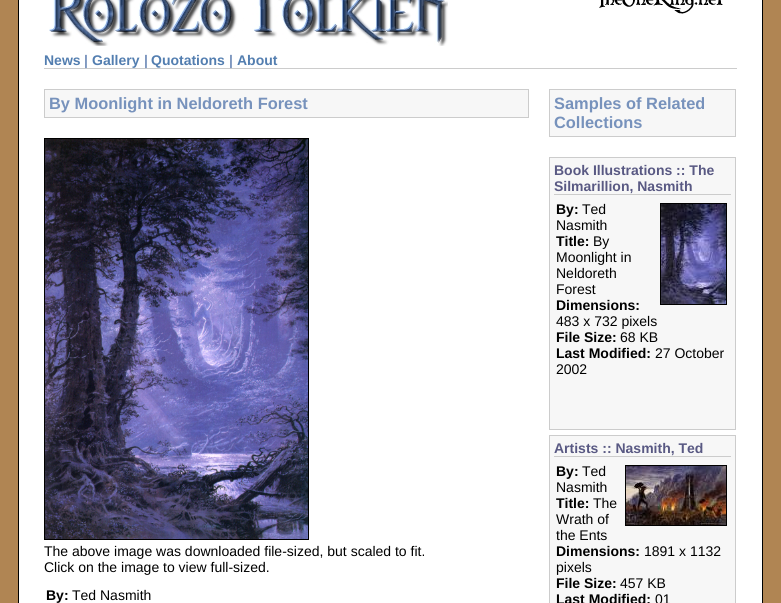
import math
import cairo

surface = cairo.ImageSurface(cairo.FORMAT_RGB24, 781, 603)
c = cairo.Context(surface)
options = cairo.FontOptions()
options.set_hint_metrics(cairo.HINT_METRICS_OFF)
options.set_hint_style(cairo.HINT_STYLE_NONE)
c.set_font_options(options)
c.set_miter_limit(4)
def C(code):
 c.set_source_rgb(*(v / 255 for v in bytes.fromhex(code[-6:])))
def F(family, size, italic, bold):
 c.select_font_face(family, cairo.FONT_SLANT_ITALIC if italic else cairo.FONT_SLANT_NORMAL, cairo.FONT_WEIGHT_BOLD if bold else cairo.FONT_WEIGHT_NORMAL)
 c.set_font_size(size)
def T(x, y, s):
 c.move_to(x, y)
 c.show_text(s)
def R(x, y, w, h):
 c.rectangle(x, y, w, h)
 c.fill()
def I(path, x, y, w, h):
 c.save()
 c.set_source_surface(cairo.ImageSurface.create_from_png(path), x, y)
 c.rectangle(x, y, w, h)
 c.fill()
 c.restore()
C('b08553')
c.paint()
C('ffffff')
c.rectangle(18.5,-.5,744,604)
c.fill_preserve()
C('000000')
c.set_line_width(1)
c.stroke()
I('1.png',49,0,399,46)
I('2.png',599,0,124,14)
C('cccccc')
R(44,68,693,1)
F('Liberation Sans',14,0,1)
C('537eb0')
T(44,65,'News')
C('7792bc')
T(84,65,'|')
C('537eb0')
T(92,65,'Gallery')
C('7792bc')
T(144,65,'|')
C('537eb0')
T(151,65,'Quotations')
C('7792bc')
T(229,65,'|')
C('537eb0')
T(237,65,'About')
C('f7f7f7')
c.rectangle(44.5,89.5,484,28)
c.fill_preserve()
C('cccccc')
c.stroke()
F('Liberation Sans',16.4,0,1)
C('7792bc')
T(49,109,'By Moonlight in Neldoreth Forest')
c.rectangle(44.5,138.5,264,401)
C('000000')
c.stroke()
I('3.png',45,139,263,400)
F('Liberation Sans',14,0,0)
T(44,556,'The above image was downloaded file-sized, but scaled to fit.')
T(44,572,'Click on the image to view full-sized.')
F('Liberation Sans',14,0,1)
T(46,600,'By:')
F('Liberation Sans',14,0,0)
T(72,600,'Ted Nasmith')
C('f7f7f7')
c.rectangle(549.5,89.5,186,47)
c.fill_preserve()
C('cccccc')
c.stroke()
F('Liberation Sans',16.4,0,1)
C('7792bc')
T(554,109,'Samples of Related')
T(554,128,'Collections')
C('f7f7f7')
c.rectangle(549.5,157.5,186,272)
c.fill_preserve()
C('cccccc')
c.stroke()
R(554,194,177,1)
F('Liberation Sans',14,0,1)
C('595983')
T(554,175,'Book Illustrations :: The')
T(554,191,'Silmarillion, Nasmith')
C('000000')
T(556,214,'By:')
F('Liberation Sans',14,0,0)
T(582,214,'Ted')
T(556,230,'Nasmith')
F('Liberation Sans',14,0,1)
T(556,246,'Title:')
F('Liberation Sans',14,0,0)
T(593,246,'By')
T(556,262,'Moonlight in')
T(556,278,'Neldoreth')
T(556,294,'Forest')
F('Liberation Sans',14,0,1)
T(556,310,'Dimensions:')
F('Liberation Sans',14,0,0)
T(556,326,'483 x 732 pixels')
F('Liberation Sans',14,0,1)
T(556,342,'File Size:')
F('Liberation Sans',14,0,0)
T(620,342,'68 KB')
F('Liberation Sans',14,0,1)
T(556,358,'Last Modified:')
F('Liberation Sans',14,0,0)
T(655,358,'27 October')
T(556,374,'2002')
c.rectangle(660.5,203.5,66,101)
c.stroke()
I('4.png',661,204,65,100)
C('f7f7f7')
c.rectangle(549.5,435.5,186,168)
c.fill_preserve()
C('cccccc')
c.stroke()
R(554,456,177,1)
F('Liberation Sans',14,0,1)
C('595983')
T(554,453,'Artists :: Nasmith, Ted')
C('000000')
T(556,476,'By:')
F('Liberation Sans',14,0,0)
T(582,476,'Ted')
T(556,492,'Nasmith')
F('Liberation Sans',14,0,1)
T(556,508,'Title:')
F('Liberation Sans',14,0,0)
T(593,508,'The')
T(556,524,'Wrath of')
T(556,540,'the Ents')
F('Liberation Sans',14,0,1)
T(556,556,'Dimensions:')
F('Liberation Sans',14,0,0)
T(644,556,'1891 x 1132')
T(556,572,'pixels')
F('Liberation Sans',14,0,1)
T(556,588,'File Size:')
F('Liberation Sans',14,0,0)
T(620,588,'457 KB')
F('Liberation Sans',14,0,1)
T(556,604,'Last Modified:')
F('Liberation Sans',14,0,0)
T(655,604,'01')
c.rectangle(625.5,465.5,101,60)
c.stroke()
I('5.png',626,466,100,59)
surface.write_to_png('o.png')
